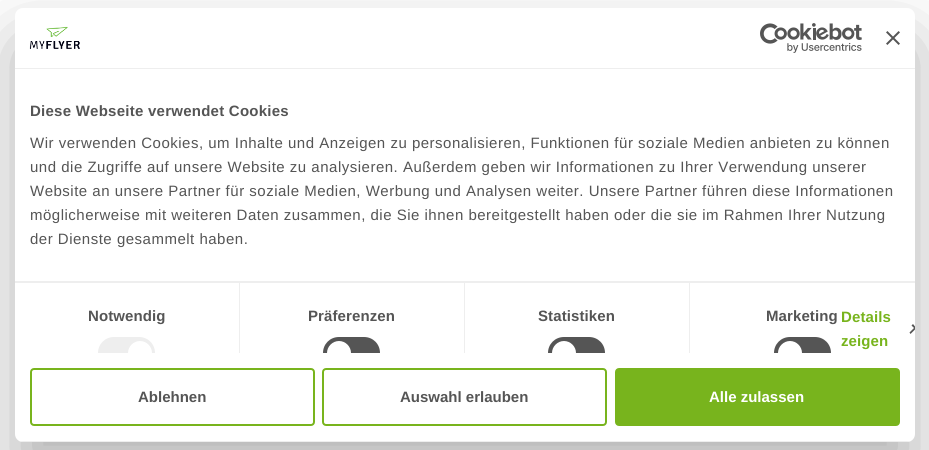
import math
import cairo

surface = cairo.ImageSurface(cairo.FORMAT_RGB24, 929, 450)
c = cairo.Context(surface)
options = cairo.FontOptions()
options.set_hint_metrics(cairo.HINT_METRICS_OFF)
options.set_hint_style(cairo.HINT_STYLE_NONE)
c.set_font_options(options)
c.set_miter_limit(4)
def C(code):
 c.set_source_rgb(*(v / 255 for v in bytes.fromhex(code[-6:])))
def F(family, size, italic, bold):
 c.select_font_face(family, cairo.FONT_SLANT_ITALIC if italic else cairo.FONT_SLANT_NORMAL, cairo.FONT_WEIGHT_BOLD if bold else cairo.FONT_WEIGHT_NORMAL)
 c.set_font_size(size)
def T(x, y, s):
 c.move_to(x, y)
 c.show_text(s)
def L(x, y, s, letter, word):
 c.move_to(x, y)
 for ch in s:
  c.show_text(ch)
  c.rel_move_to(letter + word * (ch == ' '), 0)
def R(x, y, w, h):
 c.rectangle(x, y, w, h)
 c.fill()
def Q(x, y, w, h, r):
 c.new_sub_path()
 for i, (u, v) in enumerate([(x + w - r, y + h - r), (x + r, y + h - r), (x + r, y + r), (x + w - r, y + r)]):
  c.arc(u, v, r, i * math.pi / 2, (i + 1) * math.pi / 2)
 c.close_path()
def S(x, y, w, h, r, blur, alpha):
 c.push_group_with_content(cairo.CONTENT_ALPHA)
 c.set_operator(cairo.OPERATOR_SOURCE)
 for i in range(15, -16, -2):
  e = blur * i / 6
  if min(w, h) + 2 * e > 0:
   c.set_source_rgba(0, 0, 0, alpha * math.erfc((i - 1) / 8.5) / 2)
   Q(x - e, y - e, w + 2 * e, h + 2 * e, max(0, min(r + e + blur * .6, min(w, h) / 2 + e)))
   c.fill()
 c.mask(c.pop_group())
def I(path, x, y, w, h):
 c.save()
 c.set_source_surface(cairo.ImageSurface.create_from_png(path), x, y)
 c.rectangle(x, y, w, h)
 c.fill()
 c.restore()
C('ffffff')
c.paint()
C('000000')
S(15,40,900,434,8,34,.3)
C('ffffff')
Q(15,8,900,434,8)
c.fill()
C('eeeeee')
R(15,68,900,1)
I('1.png',29,26,51,23)
I('2.png',760,23,102,30)
I('3.png',886,31,14,14)
F('Liberation Sans',15,0,1)
C('555555')
L(30,116,'Diese Webseite verwendet Cookies',.25,0)
F('Liberation Sans',15,0,0)
L(30,148,'Wir verwenden Cookies, um Inhalte und Anzeigen zu personalisieren, Funktionen für soziale Medien anbieten zu können',.5,0)
L(30,172,'und die Zugriffe auf unsere Website zu analysieren. Außerdem geben wir Informationen zu Ihrer Verwendung unserer',.5,0)
L(30,196,'Website an unsere Partner für soziale Medien, Werbung und Analysen weiter. Unsere Partner führen diese Informationen',.5,0)
L(30,220,'möglicherweise mit weiteren Daten zusammen, die Sie ihnen bereitgestellt haben oder die sie im Rahmen Ihrer Nutzung',.5,0)
L(30,244,'der Dienste gesammelt haben.',.5,0)
C('eeeeee')
R(15,281,900,2)
R(239,282,1,71)
F('Liberation Sans',15,0,1)
C('555555')
L(88,321,'Notwendig',.1,0)
C('eeeeee')
c.new_path()
c.move_to(114,337)
c.line_to(139,337)
c.curve_to(148,337,155,344,155,353)
c.line_to(98,353)
c.curve_to(98,344,105,337,114,337)
c.close_path()
c.fill()
C('ffffff')
c.new_path()
c.move_to(140,341)
c.curve_to(146.5,341,152,346.5,152,353)
c.line_to(128,353)
c.curve_to(128,346.5,133.5,341,140,341)
c.close_path()
c.fill()
C('eeeeee')
R(464,282,1,71)
C('555555')
L(308,321,'Präferenzen',.1,0)
c.new_path()
c.move_to(339,337)
c.line_to(364,337)
c.curve_to(373,337,380,344,380,353)
c.line_to(323,353)
c.curve_to(323,344,330,337,339,337)
c.close_path()
c.fill()
C('ffffff')
c.new_path()
c.move_to(339,341)
c.curve_to(345.5,341,351,346.5,351,353)
c.line_to(327,353)
c.curve_to(327,346.5,332.5,341,339,341)
c.close_path()
c.fill()
C('eeeeee')
R(689,282,1,71)
C('555555')
L(538,321,'Statistiken',.1,0)
c.new_path()
c.move_to(564,337)
c.line_to(589,337)
c.curve_to(598,337,605,344,605,353)
c.line_to(548,353)
c.curve_to(548,344,555,337,564,337)
c.close_path()
c.fill()
C('ffffff')
c.new_path()
c.move_to(564,341)
c.curve_to(570.5,341,576,346.5,576,353)
c.line_to(552,353)
c.curve_to(552,346.5,557.5,341,564,341)
c.close_path()
c.fill()
C('555555')
L(766,321,'Marketing',.1,0)
c.new_path()
c.move_to(790,337)
c.line_to(815,337)
c.curve_to(824,337,831,344,831,353)
c.line_to(774,353)
c.curve_to(774,344,781,337,790,337)
c.close_path()
c.fill()
C('ffffff')
c.new_path()
c.move_to(790,341)
c.curve_to(796.5,341,802,346.5,802,353)
c.line_to(778,353)
c.curve_to(778,346.5,783.5,341,790,341)
c.close_path()
c.fill()
C('78b41d')
L(841,322,'Details',.1,0)
C('555555')
c.new_path()
c.move_to(913,324)
c.line_to(915,326.5)
c.line_to(915,329)
c.line_to(911.5,325.5)
c.close_path()
c.fill()
c.new_path()
c.move_to(915,327)
c.line_to(915,329.5)
c.line_to(910.5,334)
c.line_to(909.5,332.5)
c.close_path()
c.fill()
C('78b41d')
L(841,346,'zeigen',.1,0)
c.save()
Q(15,8,900,434,8)
c.clip()
C('eeeeee')
R(15,441,900,1)
c.restore()
Q(31,369,283,56,3)
c.stroke()
C('555555')
T(138,402,'Ablehnen')
Q(323,369,283,56,3)
C('78b41d')
c.stroke()
C('555555')
T(400,402,'Auswahl erlauben')
C('78b41d')
Q(616,369,283,56,3)
c.fill_preserve()
c.stroke()
C('ffffff')
T(709,402,'Alle zulassen')
surface.write_to_png('o.png')
